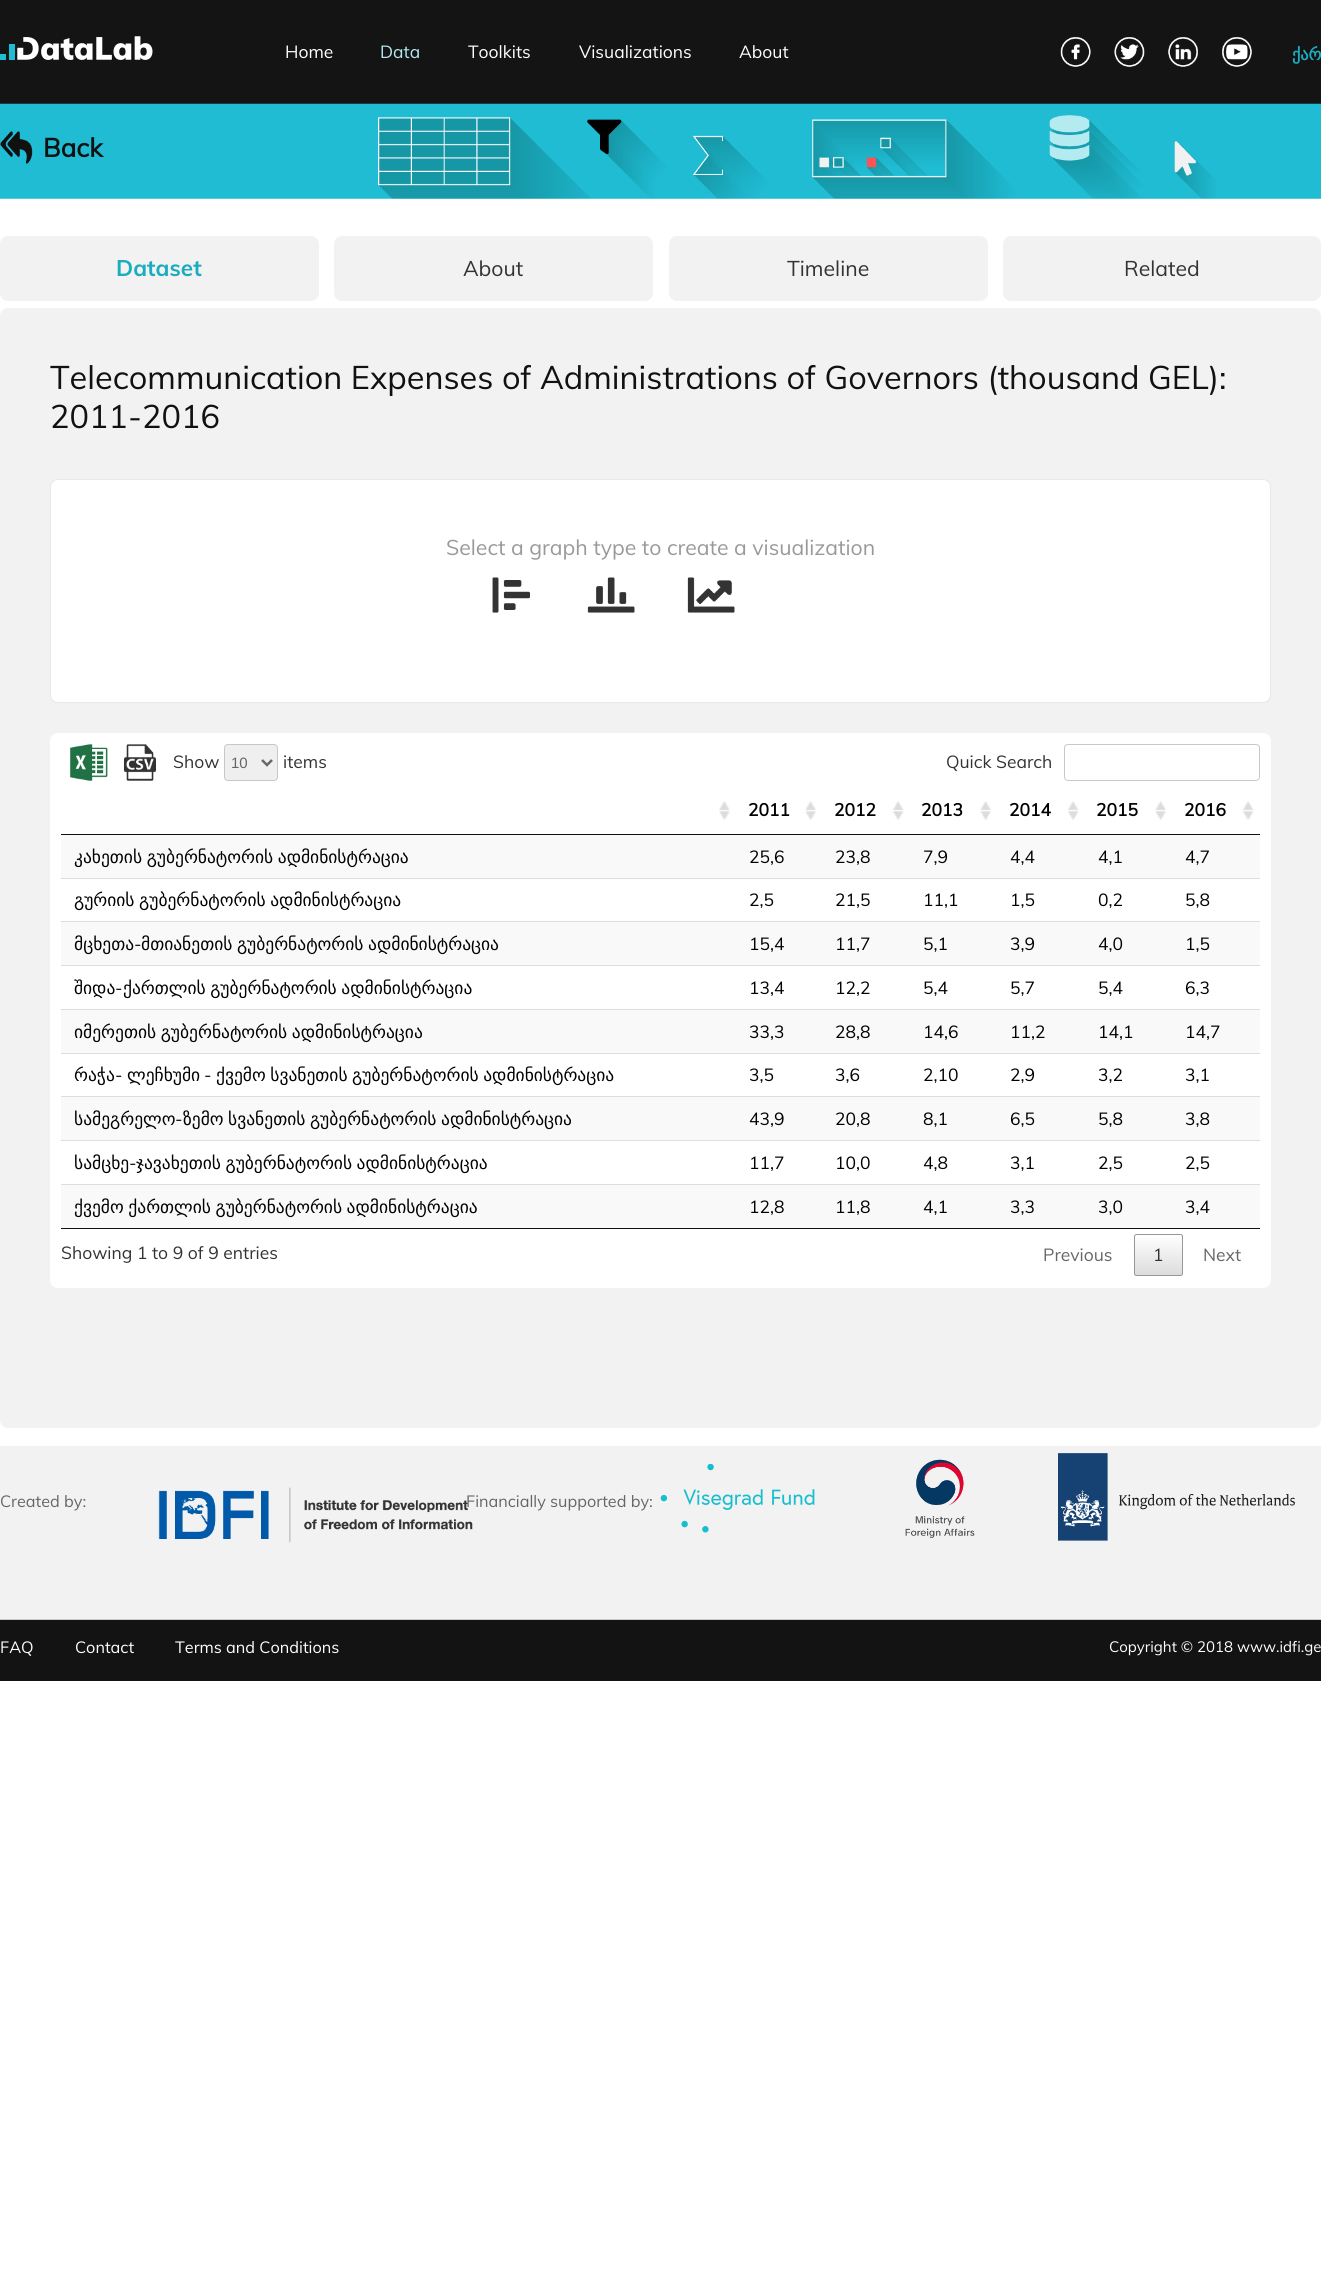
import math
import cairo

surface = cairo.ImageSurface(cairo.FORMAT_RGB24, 1321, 2270)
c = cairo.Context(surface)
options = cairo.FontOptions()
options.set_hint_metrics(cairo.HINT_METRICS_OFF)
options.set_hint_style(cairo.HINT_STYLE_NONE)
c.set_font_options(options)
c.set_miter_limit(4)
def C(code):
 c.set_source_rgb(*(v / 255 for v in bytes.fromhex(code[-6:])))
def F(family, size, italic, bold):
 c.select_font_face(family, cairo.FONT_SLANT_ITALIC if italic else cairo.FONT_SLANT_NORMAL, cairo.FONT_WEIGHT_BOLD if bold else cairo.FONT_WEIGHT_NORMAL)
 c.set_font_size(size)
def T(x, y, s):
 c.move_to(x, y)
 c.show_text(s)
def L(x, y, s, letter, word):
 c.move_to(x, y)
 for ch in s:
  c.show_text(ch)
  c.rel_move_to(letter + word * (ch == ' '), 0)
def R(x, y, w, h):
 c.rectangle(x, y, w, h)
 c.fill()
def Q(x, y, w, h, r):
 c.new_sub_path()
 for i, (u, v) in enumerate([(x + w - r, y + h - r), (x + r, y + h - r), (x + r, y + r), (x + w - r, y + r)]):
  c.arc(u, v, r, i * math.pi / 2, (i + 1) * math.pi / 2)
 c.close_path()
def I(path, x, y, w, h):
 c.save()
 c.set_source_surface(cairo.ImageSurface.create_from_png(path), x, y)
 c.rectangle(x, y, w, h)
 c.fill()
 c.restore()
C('ffffff')
c.paint()
C('141414')
R(0,0,1321,104)
I('1.png',0,36,153,24)
F('Muli',17.5,0,0)
C('ffffff')
T(285,58,'Home')
C('b4ebf1')
T(380,58,'Data')
C('ffffff')
T(468,58,'Toolkits')
T(579,58,'Visualizations')
T(739,58,'About')
I('2.png',1060,37,31,30)
I('3.png',1114,37,31,30)
I('4.png',1168,37,30,30)
I('5.png',1222,37,30,30)
F('DejaVu Sans',16.25,0,1)
C('1bacc0')
T(1292,60,'ქარ')
I('6.png',0,103,1321,96)
I('7.png',0,131,33,33)
F('Muli',26,0,1)
C('111111')
T(43,157,'Back')
C('f2f2f2')
Q(0,236,319,65,8)
c.fill()
F('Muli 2',22.5,0,1)
C('1bacc0')
T(116,276,'Dataset')
C('f2f2f2')
Q(334,236,319,65,8)
c.fill()
F('Muli',21.25,0,0)
C('333333')
T(463,276,'About')
C('f2f2f2')
Q(669,236,319,65,8)
c.fill()
C('333333')
T(787,276,'Timeline')
C('f2f2f2')
Q(1003,236,318,65,8)
c.fill()
C('333333')
T(1124,276,'Related')
C('f2f2f2')
Q(0,308,1321,1120,8)
c.fill()
F('Muli',32.5,0,0)
C('111111')
T(50,389,'Telecommunication Expenses of Administrations of Governors (thousand GEL):')
T(50,428,'2011-2016')
C('ffffff')
Q(50.5,479.5,1220,223,7.5)
c.fill_preserve()
C('e8e8e8')
c.set_line_width(1)
c.stroke()
F('Muli',21.25,0,0)
C('999999')
T(446,555,'Select a graph type to create a visualization')
I('8.png',492,577,38,36)
I('9.png',587,577,48,36)
I('10.png',687,577,48,36)
C('ffffff')
Q(50,733,1221,555,8)
c.fill()
I('11.png',70,744,38,37)
I('12.png',124,744,32,37)
F('Muli',17.5,0,0)
C('333333')
T(173,768,'Show')
C('efefef')
Q(224.5,744.5,53,36,3.5)
c.fill_preserve()
C('c8c8c8')
c.stroke()
c.new_path()
c.move_to(262,760)
c.line_to(267,765)
c.line_to(272,760)
C('686868')
c.set_line_width(2.5)
c.stroke()
F('Liberation Sans',15,0,0)
C('666666')
T(231,768,'10')
F('Muli',17.5,0,0)
C('333333')
T(283,768,'items')
T(946,768,'Quick Search')
Q(1064.5,744.5,195,36,3.5)
C('c8c8c8')
c.set_line_width(1)
c.stroke()
I('13.png',719,801,11,19)
C('111111')
R(61,834,1199,1)
I('14.png',805,801,11,19)
F('Muli',17.5,0,1)
C('000000')
T(748,816,'2011')
I('15.png',892,801,12,19)
T(834,816,'2012')
I('16.png',980,801,11,19)
T(921,816,'2013')
I('15.png',1067,801,12,19)
T(1009,816,'2014')
I('16.png',1155,801,11,19)
T(1096,816,'2015')
I('15.png',1242,801,12,19)
T(1184,816,'2016')
C('111111')
R(61,1228,1199,1)
C('f9f9f9')
R(61,835,1199,43)
F('DejaVu Sans',17.5,0,0)
C('000000')
L(74,863,'კახეთის გუბერნატორის ადმინისტრაცია',0,-1)
F('Muli',17.5,0,0)
T(749,863,'25,6')
T(835,863,'23,8')
T(923,863,'7,9')
T(1010,863,'4,4')
T(1098,863,'4,1')
T(1185,863,'4,7')
C('dddddd')
R(61,878,1199,1)
F('DejaVu Sans',17.5,0,0)
C('000000')
L(74,906,'გურიის გუბერნატორის ადმინისტრაცია',0,-1)
F('Muli',17.5,0,0)
T(749,906,'2,5')
T(835,906,'21,5')
T(923,906,'11,1')
T(1010,906,'1,5')
T(1098,906,'0,2')
T(1185,906,'5,8')
C('f9f9f9')
R(61,922,1199,43)
C('dddddd')
R(61,921,1199,1)
F('DejaVu Sans',17.5,0,0)
C('000000')
T(74,950,'მცხეთა')
F('Muli',17.5,0,0)
T(134,950,'-')
F('DejaVu Sans',17.5,0,0)
L(141,950,'მთიანეთის გუბერნატორის ადმინისტრაცია',0,-1)
F('Muli',17.5,0,0)
T(749,950,'15,4')
T(835,950,'11,7')
T(923,950,'5,1')
T(1010,950,'3,9')
T(1098,950,'4,0')
T(1185,950,'1,5')
C('dddddd')
R(61,965,1199,1)
F('DejaVu Sans',17.5,0,0)
C('000000')
T(74,994,'შიდა')
F('Muli',17.5,0,0)
T(115,994,'-')
F('DejaVu Sans',17.5,0,0)
L(123,994,'ქართლის გუბერნატორის ადმინისტრაცია',0,-1)
F('Muli',17.5,0,0)
T(749,994,'13,4')
T(835,994,'12,2')
T(923,994,'5,4')
T(1010,994,'5,7')
T(1098,994,'5,4')
T(1185,994,'6,3')
C('f9f9f9')
R(61,1010,1199,43)
C('dddddd')
R(61,1009,1199,1)
F('DejaVu Sans',17.5,0,0)
C('000000')
L(74,1038,'იმერეთის გუბერნატორის ადმინისტრაცია',0,-1)
F('Muli',17.5,0,0)
T(749,1038,'33,3')
T(835,1038,'28,8')
T(923,1038,'14,6')
T(1010,1038,'11,2')
T(1098,1038,'14,1')
T(1185,1038,'14,7')
C('dddddd')
R(61,1053,1199,1)
F('DejaVu Sans',17.5,0,0)
C('000000')
T(74,1081,'რაჭა')
F('Muli',17.5,0,0)
T(115,1081,'-')
F('DejaVu Sans',17.5,0,0)
T(127,1081,'ლეჩხუმი')
F('Muli',17.5,0,0)
T(204,1081,'-')
F('DejaVu Sans',17.5,0,0)
L(216,1081,'ქვემო სვანეთის გუბერნატორის ადმინისტრაცია',0,-1)
F('Muli',17.5,0,0)
T(749,1081,'3,5')
T(835,1081,'3,6')
T(923,1081,'2,10')
T(1010,1081,'2,9')
T(1098,1081,'3,2')
T(1185,1081,'3,1')
C('f9f9f9')
R(61,1097,1199,43)
C('dddddd')
R(61,1096,1199,1)
F('DejaVu Sans',17.5,0,0)
C('000000')
T(74,1125,'სამეგრელო')
F('Muli',17.5,0,0)
T(175,1125,'-')
F('DejaVu Sans',17.5,0,0)
L(183,1125,'ზემო სვანეთის გუბერნატორის ადმინისტრაცია',0,-1)
F('Muli',17.5,0,0)
T(749,1125,'43,9')
T(835,1125,'20,8')
T(923,1125,'8,1')
T(1010,1125,'6,5')
T(1098,1125,'5,8')
T(1185,1125,'3,8')
C('dddddd')
R(61,1140,1199,1)
F('DejaVu Sans',17.5,0,0)
C('000000')
T(74,1169,'სამცხე')
F('Muli',17.5,0,0)
T(129,1169,'-')
F('DejaVu Sans',17.5,0,0)
L(136,1169,'ჯავახეთის გუბერნატორის ადმინისტრაცია',0,-1)
F('Muli',17.5,0,0)
T(749,1169,'11,7')
T(835,1169,'10,0')
T(923,1169,'4,8')
T(1010,1169,'3,1')
T(1098,1169,'2,5')
T(1185,1169,'2,5')
C('f9f9f9')
R(61,1185,1199,43)
C('dddddd')
R(61,1184,1199,1)
F('DejaVu Sans',17.5,0,0)
C('000000')
L(74,1213,'ქვემო ქართლის გუბერნატორის ადმინისტრაცია',0,-1)
F('Muli',17.5,0,0)
T(749,1213,'12,8')
T(835,1213,'11,8')
T(923,1213,'4,1')
T(1010,1213,'3,3')
T(1098,1213,'3,0')
T(1185,1213,'3,4')
C('333333')
T(61,1259,'Showing 1 to 9 of 9 entries')
C('666666')
T(1043,1261,'Previous')
c.save()
Q(1134,1234,49,42,2.5)
c.clip()
gradient = cairo.LinearGradient(1158,1235,1158,1275)
gradient.add_color_stop_rgba(0,1,1,1,1)
gradient.add_color_stop_rgba(1,0.863,0.863,0.863,1)
c.set_source(gradient)
R(1134,1235,49,40)
c.restore()
Q(1134.5,1234.5,48,41,2)
C('979797')
c.stroke()
C('333333')
T(1153,1261,'1')
C('666666')
T(1203,1261,'Next')
C('f2f2f2')
R(0,1446,1321,173)
C('c8c8c8')
R(0,1619,1321,1)
F('Muli',16.25,0,0)
C('666666')
T(0,1507,'Created by:')
I('17.png',158,1487,315,56)
T(466,1507,'Financially supported by:')
I('18.png',660,1464,155,69)
I('19.png',905,1459,70,79)
I('20.png',1058,1453,237,88)
C('131313')
R(0,1620,1321,61)
C('ffffff')
T(0,1653,'FAQ')
T(75,1653,'Contact')
T(175,1653,'Terms and Conditions')
F('Muli',15,0,0)
T(1109,1652,'Copyright © 2018 www.idfi.ge')
surface.write_to_png('o.png')
